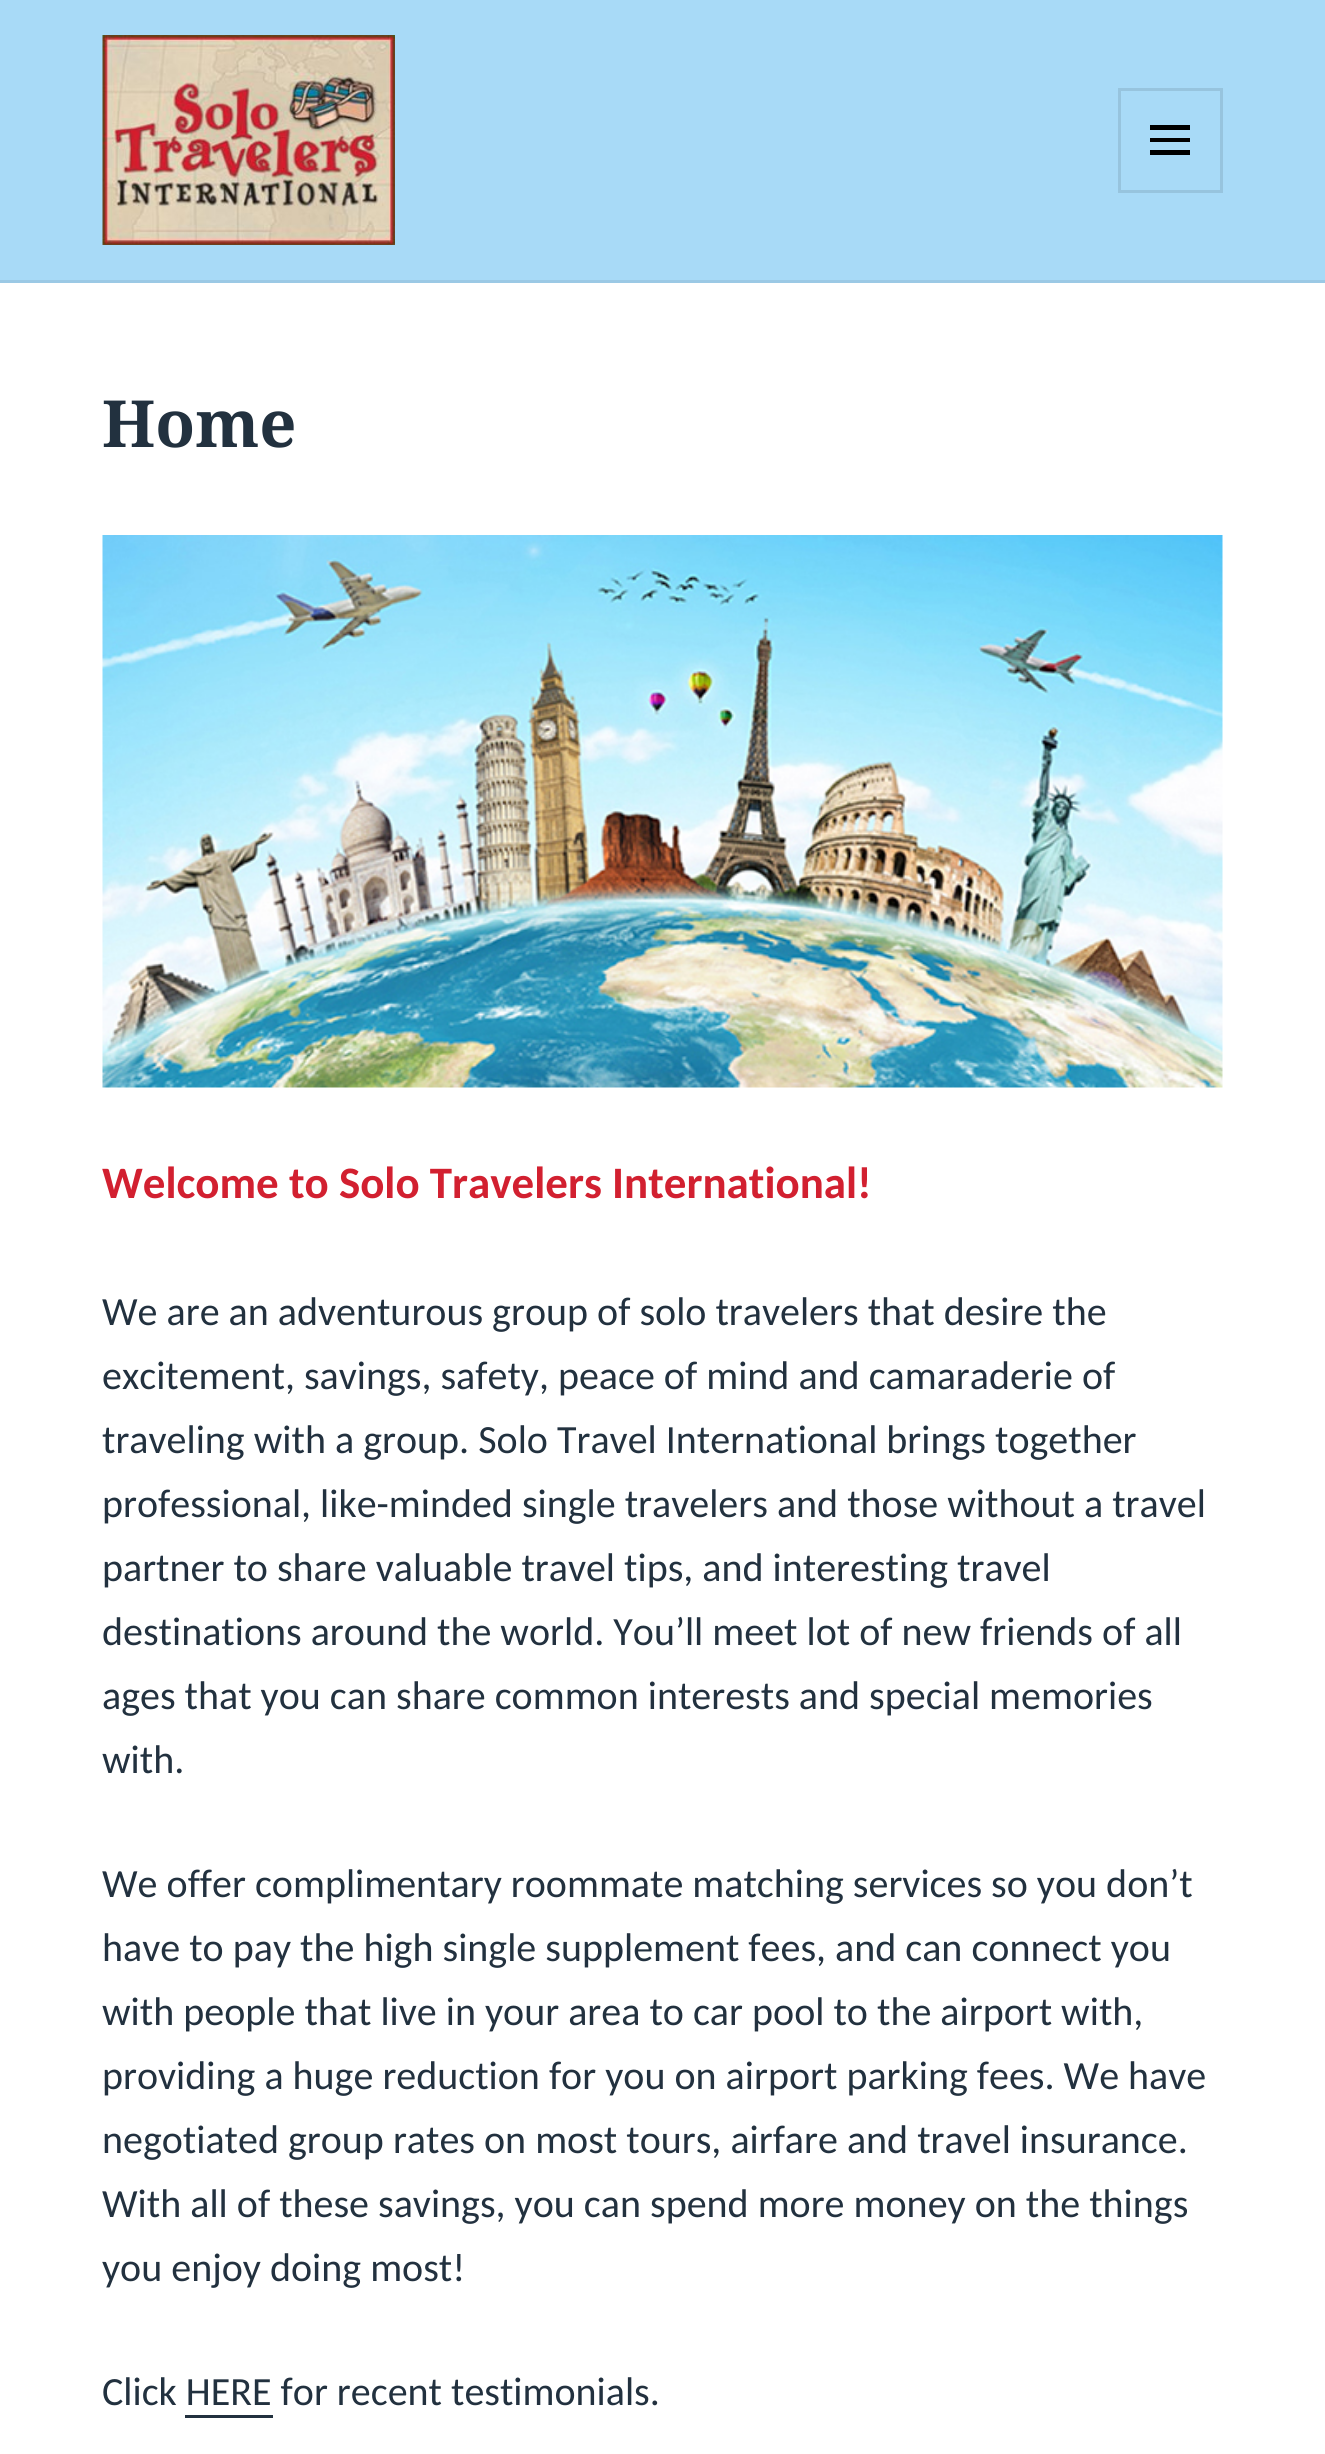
import math
import cairo

surface = cairo.ImageSurface(cairo.FORMAT_RGB24, 1325, 2454)
c = cairo.Context(surface)
options = cairo.FontOptions()
options.set_hint_metrics(cairo.HINT_METRICS_OFF)
options.set_hint_style(cairo.HINT_STYLE_NONE)
c.set_font_options(options)
c.set_miter_limit(4)
def C(code):
 c.set_source_rgb(*(v / 255 for v in bytes.fromhex(code[-6:])))
def F(family, size, italic, bold):
 c.select_font_face(family, cairo.FONT_SLANT_ITALIC if italic else cairo.FONT_SLANT_NORMAL, cairo.FONT_WEIGHT_BOLD if bold else cairo.FONT_WEIGHT_NORMAL)
 c.set_font_size(size)
def T(x, y, s):
 c.move_to(x, y)
 c.show_text(s)
def R(x, y, w, h):
 c.rectangle(x, y, w, h)
 c.fill()
def I(path, x, y, w, h):
 c.save()
 c.set_source_surface(cairo.ImageSurface.create_from_png(path), x, y)
 c.rectangle(x, y, w, h)
 c.fill()
 c.restore()
C('a8daf7')
c.paint()
C('9bc9e5')
R(0,280,1325,3)
I('1.png',102,35,293,210)
c.rectangle(1119.5,89.5,102,102)
C('97c4de')
c.set_line_width(3)
c.stroke()
C('000000')
c.new_path()
c.move_to(1150,155)
c.line_to(1150,150)
c.line_to(1190,150)
c.line_to(1190,155)
c.close_path()
c.move_to(1150,125)
c.line_to(1190,125)
c.line_to(1190,130)
c.line_to(1150,130)
c.close_path()
c.move_to(1150,142)
c.line_to(1150,138)
c.line_to(1190,138)
c.line_to(1190,142)
c.close_path()
c.fill()
C('ffffff')
R(0,283,1325,2171)
F('Noto Serif',65,0,1)
C('22313f')
T(102,447,'Home')
I('2.png',102,535,1121,553)
F('Carlito',45,0,1)
C('d22030')
T(102,1198,'Welcome to Solo Travelers International!')
F('Carlito',40,0,0)
C('22313f')
T(102,1325,'We are an adventurous group of solo travelers that desire the')
T(102,1389,'excitement, savings, safety, peace of mind and camaraderie of')
T(102,1453,'traveling with a group. Solo Travel International brings together')
T(102,1517,'professional, like-minded single travelers and those without a travel')
T(102,1581,'partner to share valuable travel tips, and interesting travel')
T(102,1645,'destinations around the world. You’ll meet lot of new friends of all')
T(102,1709,'ages that you can share common interests and special memories')
T(102,1773,'with.')
T(102,1897,'We offer complimentary roommate matching services so you don’t')
T(102,1961,'have to pay the high single supplement fees, and can connect you')
T(102,2025,'with people that live in your area to car pool to the airport with,')
T(102,2089,'providing a huge reduction for you on airport parking fees. We have')
T(102,2153,'negotiated group rates on most tours, airfare and travel insurance.')
T(102,2217,'With all of these savings, you can spend more money on the things')
T(102,2281,'you enjoy doing most!')
T(102,2405,'Click HERE for recent testimonials.')
R(185,2415,88,3)
surface.write_to_png('o.png')
